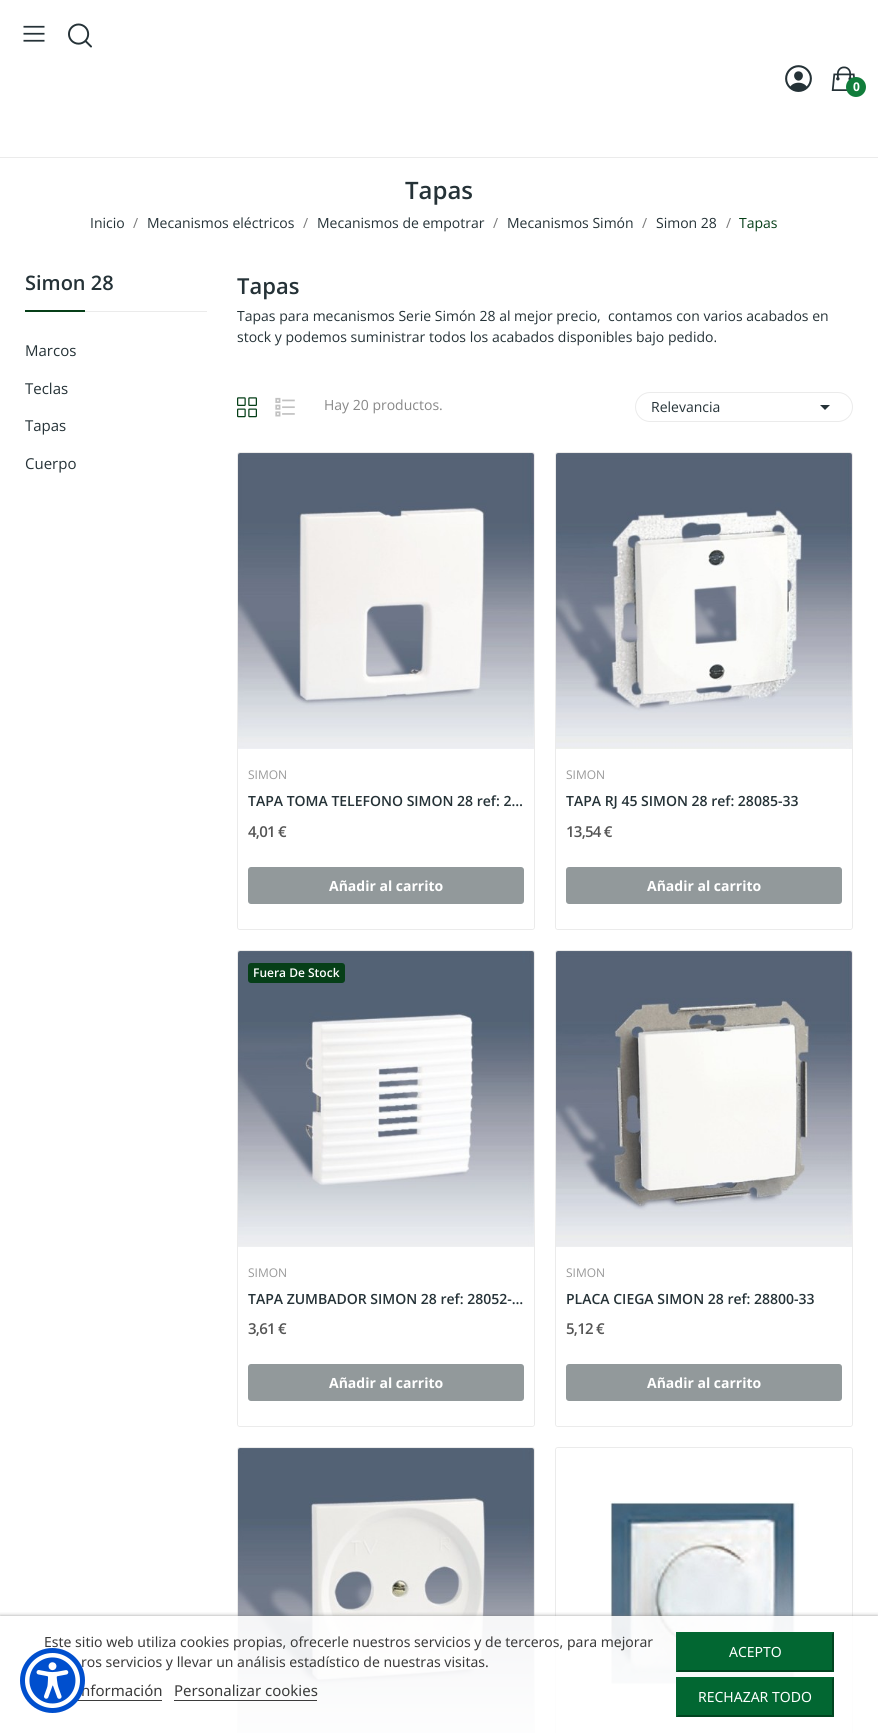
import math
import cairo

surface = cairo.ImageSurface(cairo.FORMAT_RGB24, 878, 1733)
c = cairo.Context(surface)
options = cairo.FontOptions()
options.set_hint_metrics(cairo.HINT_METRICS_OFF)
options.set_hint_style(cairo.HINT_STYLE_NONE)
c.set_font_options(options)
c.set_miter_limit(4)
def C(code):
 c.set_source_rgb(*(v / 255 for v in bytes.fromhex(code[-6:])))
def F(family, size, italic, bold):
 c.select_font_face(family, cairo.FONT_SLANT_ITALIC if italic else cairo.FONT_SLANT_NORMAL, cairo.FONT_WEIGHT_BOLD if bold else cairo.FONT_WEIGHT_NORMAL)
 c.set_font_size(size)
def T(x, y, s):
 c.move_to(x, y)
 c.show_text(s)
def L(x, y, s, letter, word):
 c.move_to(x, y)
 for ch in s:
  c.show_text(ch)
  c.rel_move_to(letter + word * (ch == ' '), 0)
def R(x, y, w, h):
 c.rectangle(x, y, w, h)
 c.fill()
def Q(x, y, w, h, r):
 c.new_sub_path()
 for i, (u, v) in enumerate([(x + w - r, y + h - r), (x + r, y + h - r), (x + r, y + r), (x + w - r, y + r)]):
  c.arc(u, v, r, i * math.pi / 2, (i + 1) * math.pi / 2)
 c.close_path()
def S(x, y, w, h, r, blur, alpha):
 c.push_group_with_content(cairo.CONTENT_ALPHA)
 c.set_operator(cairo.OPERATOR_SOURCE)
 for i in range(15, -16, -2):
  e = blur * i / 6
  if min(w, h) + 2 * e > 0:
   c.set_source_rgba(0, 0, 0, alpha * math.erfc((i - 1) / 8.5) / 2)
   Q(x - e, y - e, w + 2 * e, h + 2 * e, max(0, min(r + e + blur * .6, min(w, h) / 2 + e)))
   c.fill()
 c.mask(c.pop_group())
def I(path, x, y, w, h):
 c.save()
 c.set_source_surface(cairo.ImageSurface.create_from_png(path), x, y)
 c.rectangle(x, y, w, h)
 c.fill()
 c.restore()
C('ffffff')
c.paint()
C('ebebeb')
R(0,157,878,1)
I('1.png',23,25,22,17)
I('2.png',68,23,24,25)
I('3.png',785,65,27,27)
I('4.png',831,66,24,25)
C('117d3b')
c.arc(856,87,10,0,2 * math.pi)
c.fill()
F('Open Sans',12,0,1)
C('ffffff')
T(853,91,'0')
F('Open Sans SemiBold',24,0,0)
C('253237')
T(405,199,'Tapas')
F('Open Sans',14,0,0)
T(90,228,'Inicio')
C('7a7a7a')
T(133,228,'/')
C('253237')
T(147,228,'Mecanismos eléctricos')
C('7a7a7a')
T(303,228,'/')
C('253237')
T(317,228,'Mecanismos de empotrar')
C('7a7a7a')
T(493,228,'/')
C('253237')
T(507,228,'Mecanismos Simón')
C('7a7a7a')
T(642,228,'/')
C('253237')
T(656,228,'Simon 28')
C('7a7a7a')
T(726,228,'/')
C('063f18')
T(739,228,'Tapas')
C('ebebeb')
R(85,311,122,1)
F('Open Sans SemiBold',20,0,0)
C('253237')
T(25,290,'Simon 28')
C('063f18')
R(25,310,60,2)
F('Open Sans',15,0,0)
C('253237')
T(25,356,'Marcos')
T(25,394,'Teclas')
T(25,431,'Tapas')
T(25,469,'Cuerpo')
F('Open Sans SemiBold',22,0,0)
T(237,294,'Tapas')
F('Open Sans',14,0,0)
T(237,321,'Tapas para mecanismos Serie Simón 28 al mejor precio,  contamos con varios acabados en')
T(237,342,'stock y podemos suministrar todos los acabados disponibles bajo pedido.')
I('5.png',237,397,20,21)
I('6.png',275,397,20,20)
C('888888')
T(324,410,'Hay 20 productos.')
Q(635.5,392.5,217,29,14.5)
C('ebebeb')
c.set_line_width(1)
c.stroke()
C('253237')
T(651,412,'Relevancia')
c.new_path()
c.move_to(820,405)
c.line_to(830,405)
c.line_to(825,410)
c.close_path()
c.fill()
Q(237.5,452.5,297,477,2.5)
C('ebebeb')
c.stroke()
I('7.png',238,453,296,296)
C('ffffff')
c.new_path()
c.move_to(238,749)
c.line_to(534,749)
c.line_to(534,927)
c.curve_to(534,928,533,929,532,929)
c.line_to(240,929)
c.curve_to(239,929,238,928,238,927)
c.close_path()
c.fill()
F('Open Sans',12,0,0)
C('999999')
T(248,779,'SIMON')
F('Open Sans SemiBold',14,0,0)
C('253237')
T(248,806,'TAPA TOMA TELEFONO SIMON 28 ref: 2…')
F('Open Sans SemiBold',15,0,0)
C('555555')
L(248,837,'4,01 €',-.75,0)
C('92999b')
Q(248,867,276,37,3)
c.fill()
F('Open Sans',14,0,1)
C('ffffff')
T(329,891,'Añadir al carrito')
Q(555.5,452.5,297,477,2.5)
C('ebebeb')
c.stroke()
I('8.png',556,453,296,296)
C('ffffff')
c.new_path()
c.move_to(556,749)
c.line_to(852,749)
c.line_to(852,927)
c.curve_to(852,928,851,929,850,929)
c.line_to(558,929)
c.curve_to(557,929,556,928,556,927)
c.close_path()
c.fill()
F('Open Sans',12,0,0)
C('999999')
T(566,779,'SIMON')
F('Open Sans SemiBold',14,0,0)
C('253237')
T(566,806,'TAPA RJ 45 SIMON 28 ref: 28085-33')
F('Open Sans SemiBold',15,0,0)
C('555555')
L(566,837,'13,54 €',-.75,0)
C('92999b')
Q(566,867,276,37,3)
c.fill()
F('Open Sans',14,0,1)
C('ffffff')
T(647,891,'Añadir al carrito')
Q(237.5,950.5,297,476,2.5)
C('ebebeb')
c.stroke()
I('9.png',238,951,296,296)
C('063f18')
Q(248,963,97,20,3)
c.fill()
F('Open Sans SemiBold',12,0,0)
C('ffffff')
T(253,977,'Fuera De Stock')
c.new_path()
c.move_to(238,1247)
c.line_to(534,1247)
c.line_to(534,1424)
c.curve_to(534,1425,533,1426,532,1426)
c.line_to(240,1426)
c.curve_to(239,1426,238,1425,238,1424)
c.close_path()
c.fill()
F('Open Sans',12,0,0)
C('999999')
T(248,1277,'SIMON')
F('Open Sans SemiBold',14,0,0)
C('253237')
T(248,1304,'TAPA ZUMBADOR SIMON 28 ref: 28052-…')
F('Open Sans SemiBold',15,0,0)
C('555555')
L(248,1334,'3,61 €',-.75,0)
C('92999b')
Q(248,1364,276,37,3)
c.fill()
F('Open Sans',14,0,1)
C('ffffff')
T(329,1388,'Añadir al carrito')
Q(555.5,950.5,297,476,2.5)
C('ebebeb')
c.stroke()
I('10.png',556,951,296,296)
C('ffffff')
c.new_path()
c.move_to(556,1247)
c.line_to(852,1247)
c.line_to(852,1424)
c.curve_to(852,1425,851,1426,850,1426)
c.line_to(558,1426)
c.curve_to(557,1426,556,1425,556,1424)
c.close_path()
c.fill()
F('Open Sans',12,0,0)
C('999999')
T(566,1277,'SIMON')
F('Open Sans SemiBold',14,0,0)
C('253237')
T(566,1304,'PLACA CIEGA SIMON 28 ref: 28800-33')
F('Open Sans SemiBold',15,0,0)
C('555555')
L(566,1334,'5,12 €',-.75,0)
C('92999b')
Q(566,1364,276,37,3)
c.fill()
F('Open Sans',14,0,1)
C('ffffff')
T(647,1388,'Añadir al carrito')
Q(237.5,1447.5,297,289,2.5)
C('ebebeb')
c.stroke()
I('11.png',238,1448,296,285)
Q(555.5,1447.5,297,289,2.5)
c.stroke()
C('ffffff')
c.new_path()
c.move_to(558,1448)
c.line_to(850,1448)
c.curve_to(851,1448,852,1449,852,1450)
c.line_to(852,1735)
c.line_to(556,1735)
c.line_to(556,1450)
c.curve_to(556,1449,557,1448,558,1448)
c.close_path()
c.fill()
I('12.png',610,1501,189,184)
c.save()
c.rectangle(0,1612,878,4)
c.clip()
C('707070')
S(0,1617,878,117,0,2.5,1)
c.restore()
c.set_source_rgba(1,1,1,0.9)
R(237,1616,616,117)
F('Noto Sans',14,0,0)
C('3b3b3b')
T(44,1647,'Este sitio web utiliza cookies propias, ofrecerle nuestros servicios y de terceros, para mejorar')
T(81,1667,'ros servicios y llevar un análisis estadístico de nuestras visitas.')
F('Noto Sans',15,0,0)
T(81,1696,'nformación')
R(77,1700,85,1)
T(174,1696,'Personalizar cookies')
R(174,1700,143,1)
C('026732')
R(676,1632,158,40)
C('014521')
c.new_path()
c.move_to(834,1632)
c.line_to(834,1672)
c.line_to(832,1670)
c.line_to(832,1634)
c.close_path()
c.fill()
c.new_path()
c.move_to(834,1672)
c.line_to(676,1672)
c.line_to(678,1670)
c.line_to(832,1670)
c.close_path()
c.fill()
C('026732')
c.new_path()
c.move_to(676,1672)
c.line_to(676,1632)
c.line_to(678,1634)
c.line_to(678,1670)
c.close_path()
c.fill()
F('Noto Sans',14,0,0)
C('ffffff')
T(729,1657,'ACEPTO')
C('026732')
R(676,1677,158,40)
C('014521')
c.new_path()
c.move_to(834,1677)
c.line_to(834,1717)
c.line_to(832,1715)
c.line_to(832,1679)
c.close_path()
c.fill()
c.new_path()
c.move_to(834,1717)
c.line_to(676,1717)
c.line_to(678,1715)
c.line_to(832,1715)
c.close_path()
c.fill()
C('026732')
c.new_path()
c.move_to(676,1717)
c.line_to(676,1677)
c.line_to(678,1679)
c.line_to(678,1715)
c.close_path()
c.fill()
C('ffffff')
T(698,1702,'RECHAZAR TODO')
C('004fce')
c.new_path()
c.arc(52.5,1680.5,32.5,0,2 * math.pi)
c.fill()
I('13.png',25,1653,55,55)
surface.write_to_png('o.png')
